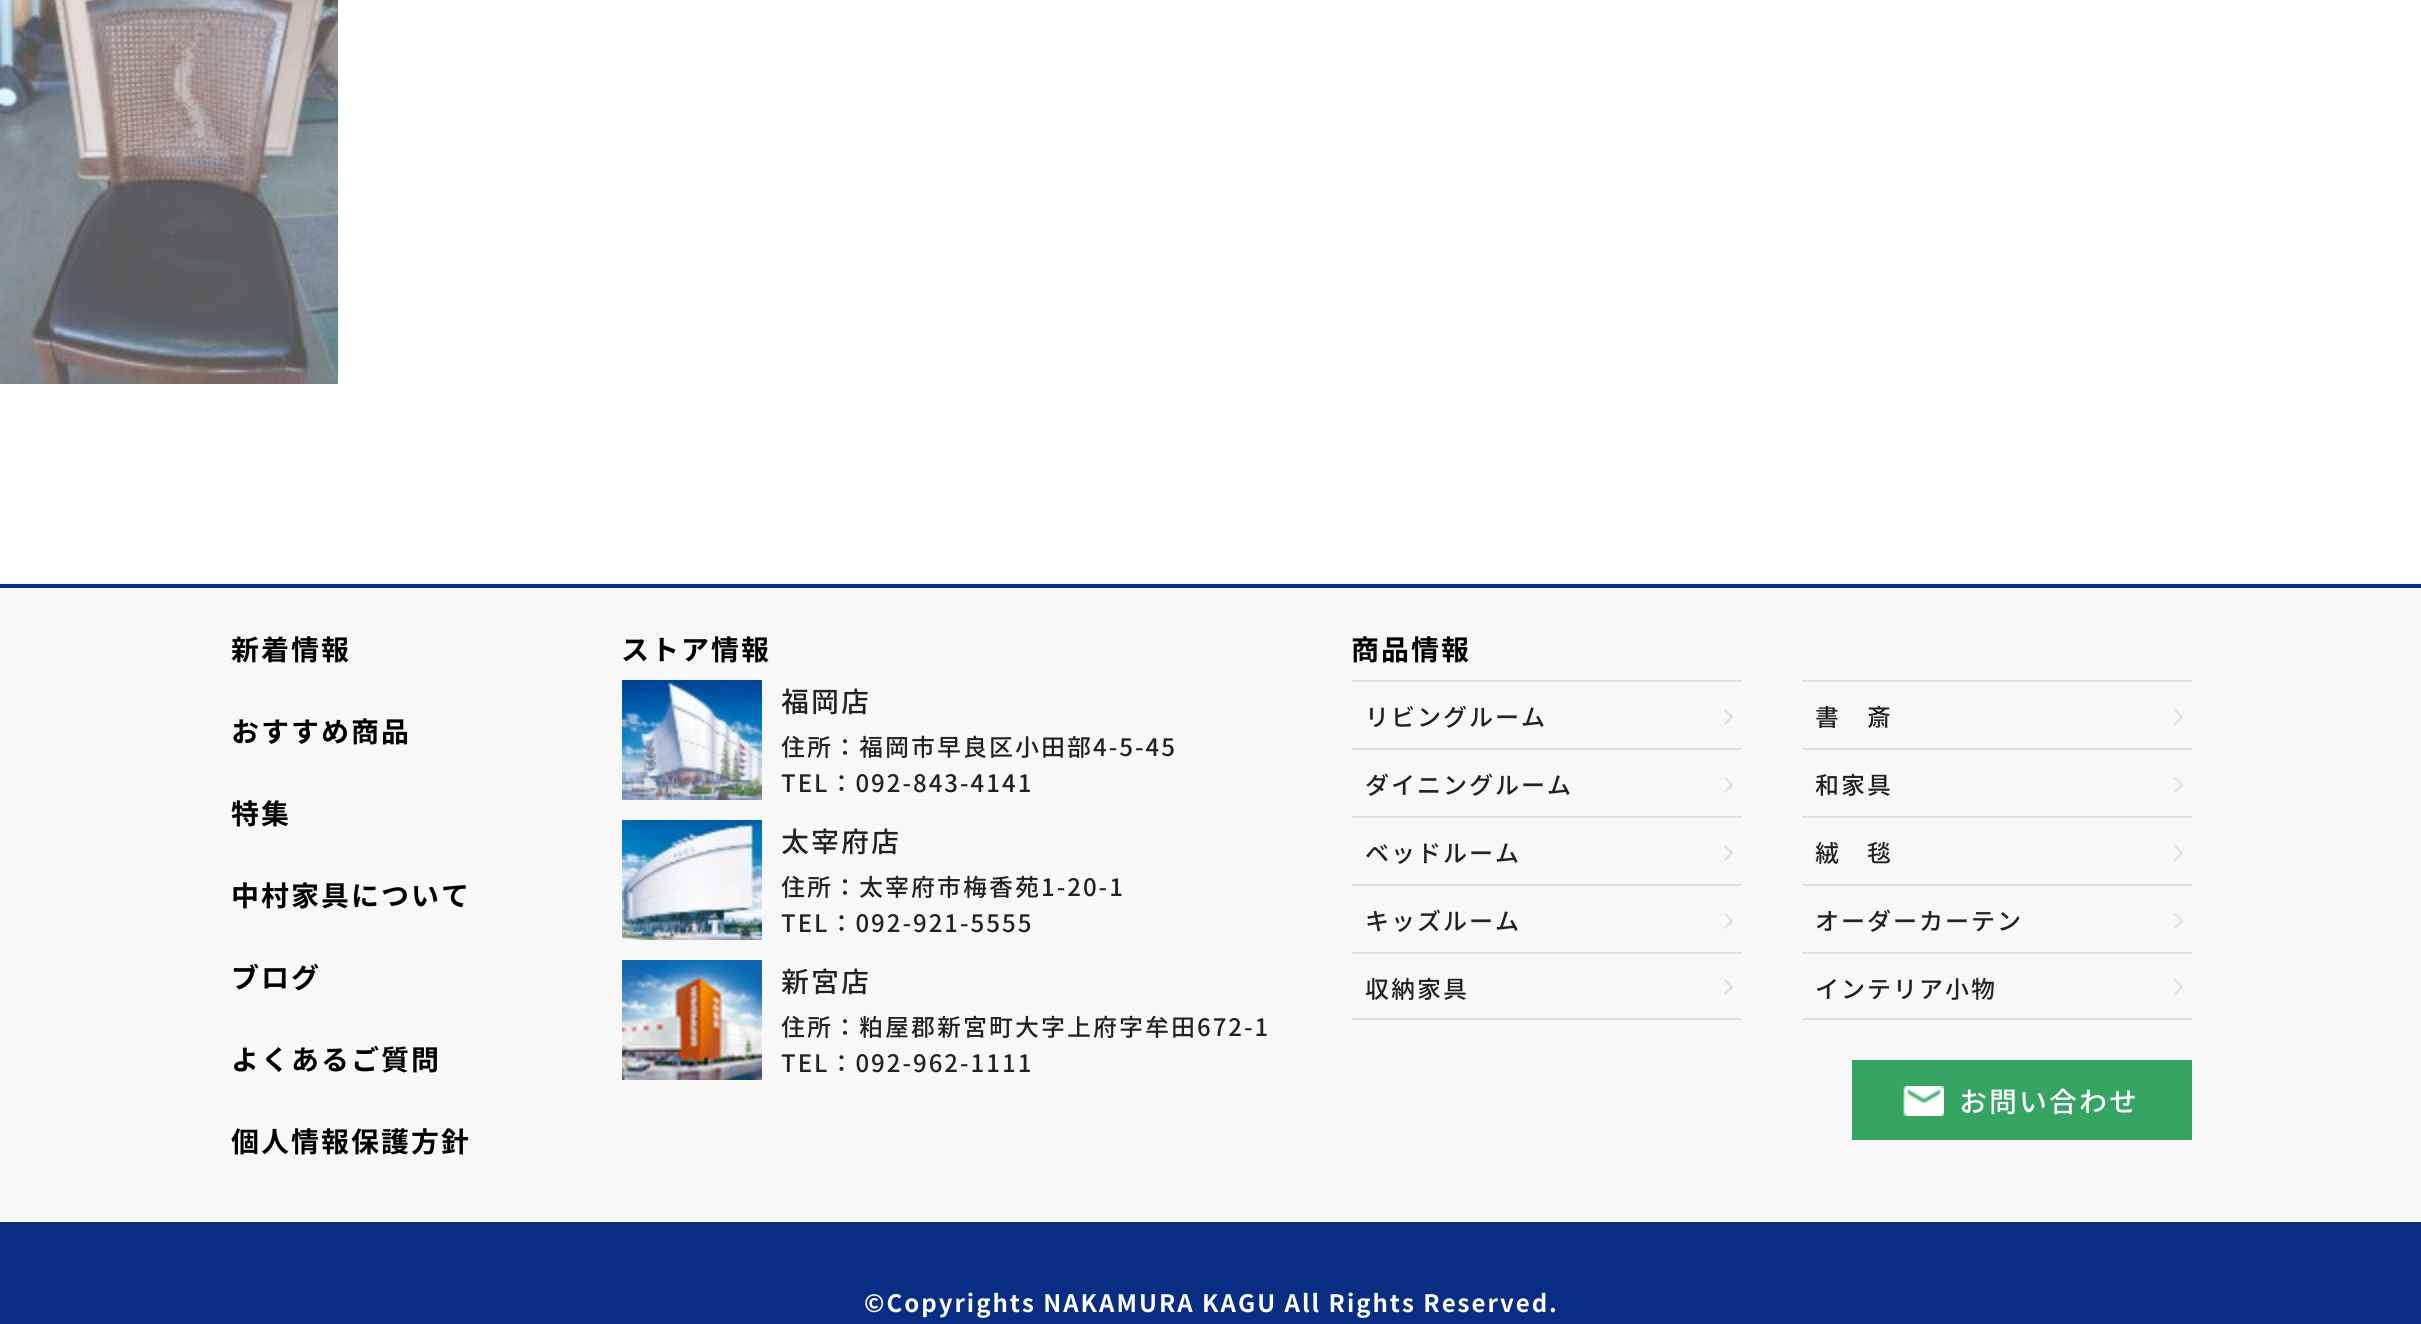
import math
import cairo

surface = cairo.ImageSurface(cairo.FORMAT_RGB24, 2421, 1324)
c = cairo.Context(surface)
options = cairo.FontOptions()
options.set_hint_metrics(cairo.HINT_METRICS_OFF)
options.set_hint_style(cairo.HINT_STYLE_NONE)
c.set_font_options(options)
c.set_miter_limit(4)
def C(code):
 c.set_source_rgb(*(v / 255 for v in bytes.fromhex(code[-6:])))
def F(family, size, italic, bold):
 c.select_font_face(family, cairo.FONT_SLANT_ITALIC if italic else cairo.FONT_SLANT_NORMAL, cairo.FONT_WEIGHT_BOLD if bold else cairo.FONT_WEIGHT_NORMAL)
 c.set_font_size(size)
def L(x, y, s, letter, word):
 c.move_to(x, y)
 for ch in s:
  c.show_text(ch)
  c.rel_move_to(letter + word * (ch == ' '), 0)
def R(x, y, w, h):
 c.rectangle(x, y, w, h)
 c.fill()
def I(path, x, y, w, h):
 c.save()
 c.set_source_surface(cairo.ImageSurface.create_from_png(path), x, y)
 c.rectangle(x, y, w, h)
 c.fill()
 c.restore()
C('ffffff')
c.paint()
I('1.png',0,0,338,384)
C('f8f8f8')
R(0,588,2421,634)
C('082d83')
R(0,584,2421,4)
F('Noto Sans JP',28,0,1)
C('000000')
L(231,660,'新着情報',2,0)
L(231,742,'おすすめ商品',2,0)
L(231,824,'特集',2,0)
L(231,906,'中村家具について',2,0)
L(231,988,'ブログ',2,0)
L(231,1070,'よくあるご質問',2,0)
L(231,1152,'個人情報保護方針',2,0)
L(621,660,'ストア情報',2,0)
I('2.png',622,680,140,120)
F('Noto Sans JP Medium',28,0,0)
C('212121')
L(781,712,'福岡店',2,0)
F('Noto Sans JP Medium',24,0,0)
L(781,756,'住所：福岡市早良区小田部4-5-45',2,0)
L(781,792,'TEL：092-843-4141',2,0)
I('3.png',622,820,140,120)
F('Noto Sans JP Medium',28,0,0)
L(781,852,'太宰府店',2,0)
F('Noto Sans JP Medium',24,0,0)
L(781,896,'住所：太宰府市梅香苑1-20-1',2,0)
L(781,932,'TEL：092-921-5555',2,0)
I('4.png',622,960,140,120)
F('Noto Sans JP Medium',28,0,0)
L(781,992,'新宮店',2,0)
F('Noto Sans JP Medium',24,0,0)
L(781,1036,'住所：粕屋郡新宮町大字上府字牟田672-1',2,0)
L(781,1072,'TEL：092-962-1111',2,0)
F('Noto Sans JP',28,0,1)
C('000000')
L(1351,660,'商品情報',2,0)
C('e0e0e0')
R(1352,680,390,2)
F('Noto Sans JP Medium',24,0,0)
C('212121')
L(1365,726,'リビングルーム',2,0)
I('5.png',1724,709,9,16)
C('e0e0e0')
R(1352,748,390,2)
C('212121')
L(1365,794,'ダイニングルーム',2,0)
I('5.png',1724,777,9,16)
C('e0e0e0')
R(1352,816,390,2)
C('212121')
L(1365,862,'ベッドルーム',2,0)
I('5.png',1724,845,9,16)
C('e0e0e0')
R(1352,884,390,2)
C('212121')
L(1365,930,'キッズルーム',2,0)
I('5.png',1724,913,9,16)
C('e0e0e0')
R(1352,952,390,2)
R(1352,1018,390,2)
C('212121')
L(1365,998,'収納家具',2,0)
I('5.png',1724,979,9,16)
C('e0e0e0')
R(1802,680,390,2)
C('212121')
L(1815,726,'書　斎',2,0)
I('5.png',2174,709,9,16)
C('e0e0e0')
R(1802,748,390,2)
C('212121')
L(1815,794,'和家具',2,0)
I('5.png',2174,777,9,16)
C('e0e0e0')
R(1802,816,390,2)
C('212121')
L(1815,862,'絨　毯',2,0)
I('5.png',2174,845,9,16)
C('e0e0e0')
R(1802,884,390,2)
C('212121')
L(1815,930,'オーダーカーテン',2,0)
I('5.png',2174,913,9,16)
C('e0e0e0')
R(1802,952,390,2)
R(1802,1018,390,2)
C('212121')
L(1815,998,'インテリア小物',2,0)
I('5.png',2174,979,9,16)
C('36a564')
R(1852,1060,340,80)
I('6.png',1903,1086,41,30)
F('Noto Sans JP Medium',28,0,0)
C('ffffff')
L(1959,1112,'お問い合わせ',2,0)
C('082d83')
R(0,1222,2421,102)
F('Noto Sans JP',24,0,1)
C('ffffff')
L(864,1312,'©Copyrights NAKAMURA KAGU All Rights Reserved.',2,0)
surface.write_to_png('o.png')
